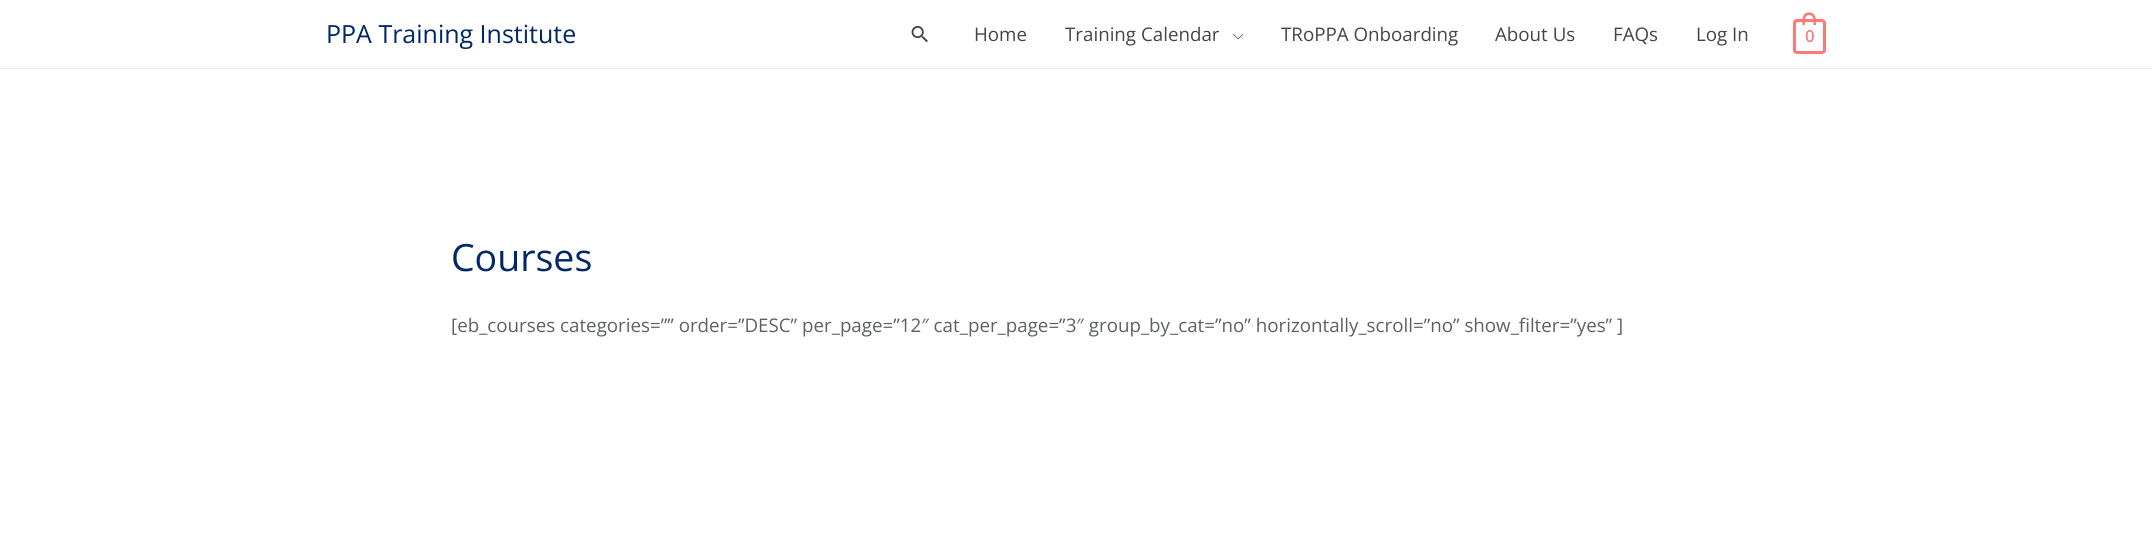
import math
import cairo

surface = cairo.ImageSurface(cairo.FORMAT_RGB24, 2152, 553)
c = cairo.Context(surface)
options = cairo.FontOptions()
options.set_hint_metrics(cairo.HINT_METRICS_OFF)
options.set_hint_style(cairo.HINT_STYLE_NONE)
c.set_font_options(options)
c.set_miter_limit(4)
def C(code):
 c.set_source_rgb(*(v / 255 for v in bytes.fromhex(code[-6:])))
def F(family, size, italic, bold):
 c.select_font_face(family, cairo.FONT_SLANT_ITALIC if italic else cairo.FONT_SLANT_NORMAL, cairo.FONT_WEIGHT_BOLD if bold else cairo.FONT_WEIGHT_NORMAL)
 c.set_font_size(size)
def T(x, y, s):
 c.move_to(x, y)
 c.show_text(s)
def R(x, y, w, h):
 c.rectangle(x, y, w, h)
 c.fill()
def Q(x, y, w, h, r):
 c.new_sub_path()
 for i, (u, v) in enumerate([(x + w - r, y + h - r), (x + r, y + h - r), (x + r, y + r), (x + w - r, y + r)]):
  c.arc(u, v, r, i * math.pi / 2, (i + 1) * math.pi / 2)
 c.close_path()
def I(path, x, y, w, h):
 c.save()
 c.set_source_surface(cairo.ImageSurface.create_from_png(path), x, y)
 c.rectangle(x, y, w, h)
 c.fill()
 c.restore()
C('ffffff')
c.paint()
C('eaeaea')
R(0,68,2152,1)
F('Open Sans',25,0,0)
C('002767')
T(326,43,'PPA Training Institute')
I('1.png',911,25,17,18)
F('Open Sans',18.75,0,0)
C('454546')
T(974,41,'Home')
T(1065,41,'Training Calendar')
I('2.png',1233,33,11,7)
T(1281,41,'TRoPPA Onboarding')
T(1495,41,'About Us')
T(1613,41,'FAQs')
T(1696,41,'Log In')
Q(1794.5,20.5,30,32,2.5)
C('fc7978')
c.set_line_width(3)
c.stroke()
c.set_fill_rule(cairo.FILL_RULE_EVEN_ODD)
c.new_path()
c.move_to(1809,12.5)
c.curve_to(1816.5,12.5,1816,20,1816,25)
c.line_to(1802.5,25)
c.curve_to(1802.5,20,1801.5,12.5,1809,12.5)
c.close_path()
c.move_to(1809,15)
c.curve_to(1814.5,15,1813.5,21.5,1813.5,25)
c.line_to(1805,25)
c.curve_to(1805,21.5,1804,15,1809,15)
c.close_path()
c.fill()
F('Open Sans',16,0,1)
T(1805,42,'0')
F('Open Sans',37.5,0,0)
C('002767')
T(451,271,'Courses')
F('Open Sans',18.75,0,0)
C('5d6167')
T(451,332,'[eb_courses categories=”” order=”DESC” per_page=”12″ cat_per_page=”3″ group_by_cat=”no” horizontally_scroll=”no” show_filter=”yes” ]')
surface.write_to_png('o.png')
